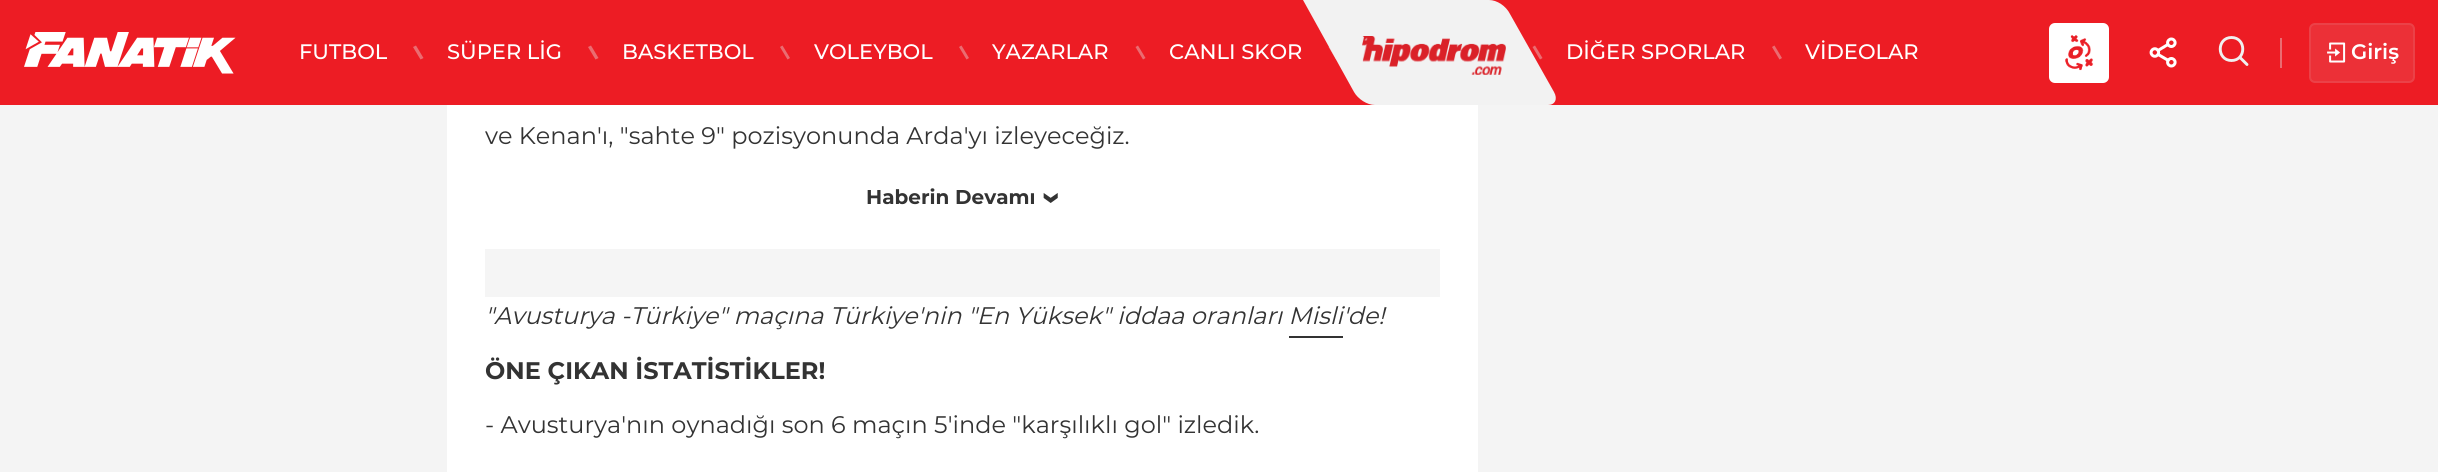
import math
import cairo

surface = cairo.ImageSurface(cairo.FORMAT_RGB24, 2438, 472)
c = cairo.Context(surface)
options = cairo.FontOptions()
options.set_hint_metrics(cairo.HINT_METRICS_OFF)
options.set_hint_style(cairo.HINT_STYLE_NONE)
c.set_font_options(options)
c.set_miter_limit(4)
def C(code):
 c.set_source_rgb(*(v / 255 for v in bytes.fromhex(code[-6:])))
def F(family, size, italic, bold):
 c.select_font_face(family, cairo.FONT_SLANT_ITALIC if italic else cairo.FONT_SLANT_NORMAL, cairo.FONT_WEIGHT_BOLD if bold else cairo.FONT_WEIGHT_NORMAL)
 c.set_font_size(size)
def T(x, y, s):
 c.move_to(x, y)
 c.show_text(s)
def R(x, y, w, h):
 c.rectangle(x, y, w, h)
 c.fill()
def Q(x, y, w, h, r):
 c.new_sub_path()
 for i, (u, v) in enumerate([(x + w - r, y + h - r), (x + r, y + h - r), (x + r, y + r), (x + w - r, y + r)]):
  c.arc(u, v, r, i * math.pi / 2, (i + 1) * math.pi / 2)
 c.close_path()
def I(path, x, y, w, h):
 c.save()
 c.set_source_surface(cairo.ImageSurface.create_from_png(path), x, y)
 c.rectangle(x, y, w, h)
 c.fill()
 c.restore()
C('f4f4f4')
c.paint()
C('ed1c24')
R(0,0,2438,105)
I('1.png',24,32,212,42)
F('Montserrat Medium',21,0,0)
C('ffffff')
T(299,59,'FUTBOL')
C('ea6c71')
c.new_path()
c.move_to(413,47)
c.line_to(416,45.5)
c.line_to(423.5,58)
c.line_to(420.5,59.5)
c.close_path()
c.fill()
C('ffffff')
T(447,59,'SÜPER LİG')
C('ea6c71')
c.new_path()
c.move_to(588,47)
c.line_to(591,45.5)
c.line_to(598.5,58)
c.line_to(595.5,59.5)
c.close_path()
c.fill()
C('ffffff')
T(622,59,'BASKETBOL')
C('ea6c71')
c.new_path()
c.move_to(780,47)
c.line_to(782.5,45.5)
c.line_to(790,58)
c.line_to(787.5,59.5)
c.close_path()
c.fill()
C('ffffff')
T(814,59,'VOLEYBOL')
C('ea6c71')
c.new_path()
c.move_to(959,47)
c.line_to(961.5,45.5)
c.line_to(969,58)
c.line_to(966.5,59.5)
c.close_path()
c.fill()
C('ffffff')
T(992,59,'YAZARLAR')
C('ea6c71')
c.new_path()
c.move_to(1135.5,47)
c.line_to(1138,45.5)
c.line_to(1145.5,58)
c.line_to(1143,59.5)
c.close_path()
c.fill()
C('ffffff')
T(1169,59,'CANLI SKOR')
C('ea6c71')
c.new_path()
c.move_to(1328.5,47)
c.line_to(1331,45.5)
c.line_to(1338.5,58)
c.line_to(1336,59.5)
c.close_path()
c.fill()
c.new_path()
c.move_to(1532.5,47)
c.line_to(1535,45.5)
c.line_to(1542.5,58)
c.line_to(1540,59.5)
c.close_path()
c.fill()
C('f2f2f2')
c.new_path()
c.move_to(1303,0)
c.line_to(1489,0)
c.curve_to(1497,0,1506,6,1510,14)
c.line_to(1554,92)
c.curve_to(1558,99,1555,105,1548,105)
c.line_to(1375,105)
c.curve_to(1367,105,1358,99,1354,92)
c.close_path()
c.fill()
I('2.png',1362,36,144,39)
C('ffffff')
T(1566,59,'DİĞER SPORLAR')
C('ea6c71')
c.new_path()
c.move_to(1772,47)
c.line_to(1774.5,45.5)
c.line_to(1782,58)
c.line_to(1779.5,59.5)
c.close_path()
c.fill()
C('ffffff')
T(1805,59,'VİDEOLAR')
Q(2049,23,60,60,6)
c.fill()
I('3.png',2065,35,29,36)
I('4.png',2149,37,28,31)
c.new_path()
c.move_to(2231.5,60.5)
c.curve_to(2246.5,60.5,2246.5,37.5,2231.5,37.5)
c.curve_to(2216.5,37.5,2216.5,60.5,2231.5,60.5)
c.close_path()
C('f0f0f0')
c.set_line_width(2.9)
c.set_line_join(cairo.LINE_JOIN_ROUND)
c.stroke()
c.new_path()
c.move_to(2240,57.5)
c.line_to(2247,64.5)
c.set_line_cap(cairo.LINE_CAP_ROUND)
c.stroke()
C('ea6c71')
R(2280,38,2,30)
C('ec3037')
Q(2309,23,106,60,6)
c.fill()
Q(2310,24,104,58,5)
c.set_source_rgba(0.898,0.898,0.898,0.1)
c.set_line_width(2)
c.set_line_cap(cairo.LINE_CAP_BUTT)
c.set_line_join(cairo.LINE_JOIN_MITER)
c.stroke()
I('5.png',2327,42,19,21)
F('Montserrat SemiBold',21,0,0)
C('ffffff')
T(2351,59,'Giriş')
R(447,105,1031,367)
F('Montserrat',24,0,0)
C('333333')
T(485,144,'ve Kenan\'ı, "sahte 9" pozisyonunda Arda\'yı izleyeceğiz.')
F('Montserrat',20,0,1)
T(866,204,'Haberin Devamı')
F('Montserrat',36,0,1)
c.save()
c.translate(1041,192)
c.rotate(90 * math.pi / 180)
T(0,0,'›')
c.restore()
C('f5f5f5')
R(485,249,955,48)
F('Montserrat',24,1,0)
C('333333')
T(485,324,'"Avusturya -Türkiye" maçına Türkiye\'nin "En Yüksek" iddaa oranları Misli\'de!')
R(1289,336,54,2)
F('Montserrat',24,0,1)
T(485,379,'ÖNE ÇIKAN İSTATİSTİKLER!')
F('Montserrat',24,0,0)
T(485,433,'- Avusturya\'nın oynadığı son 6 maçın 5\'inde "karşılıklı gol" izledik.')
surface.write_to_png('o.png')
